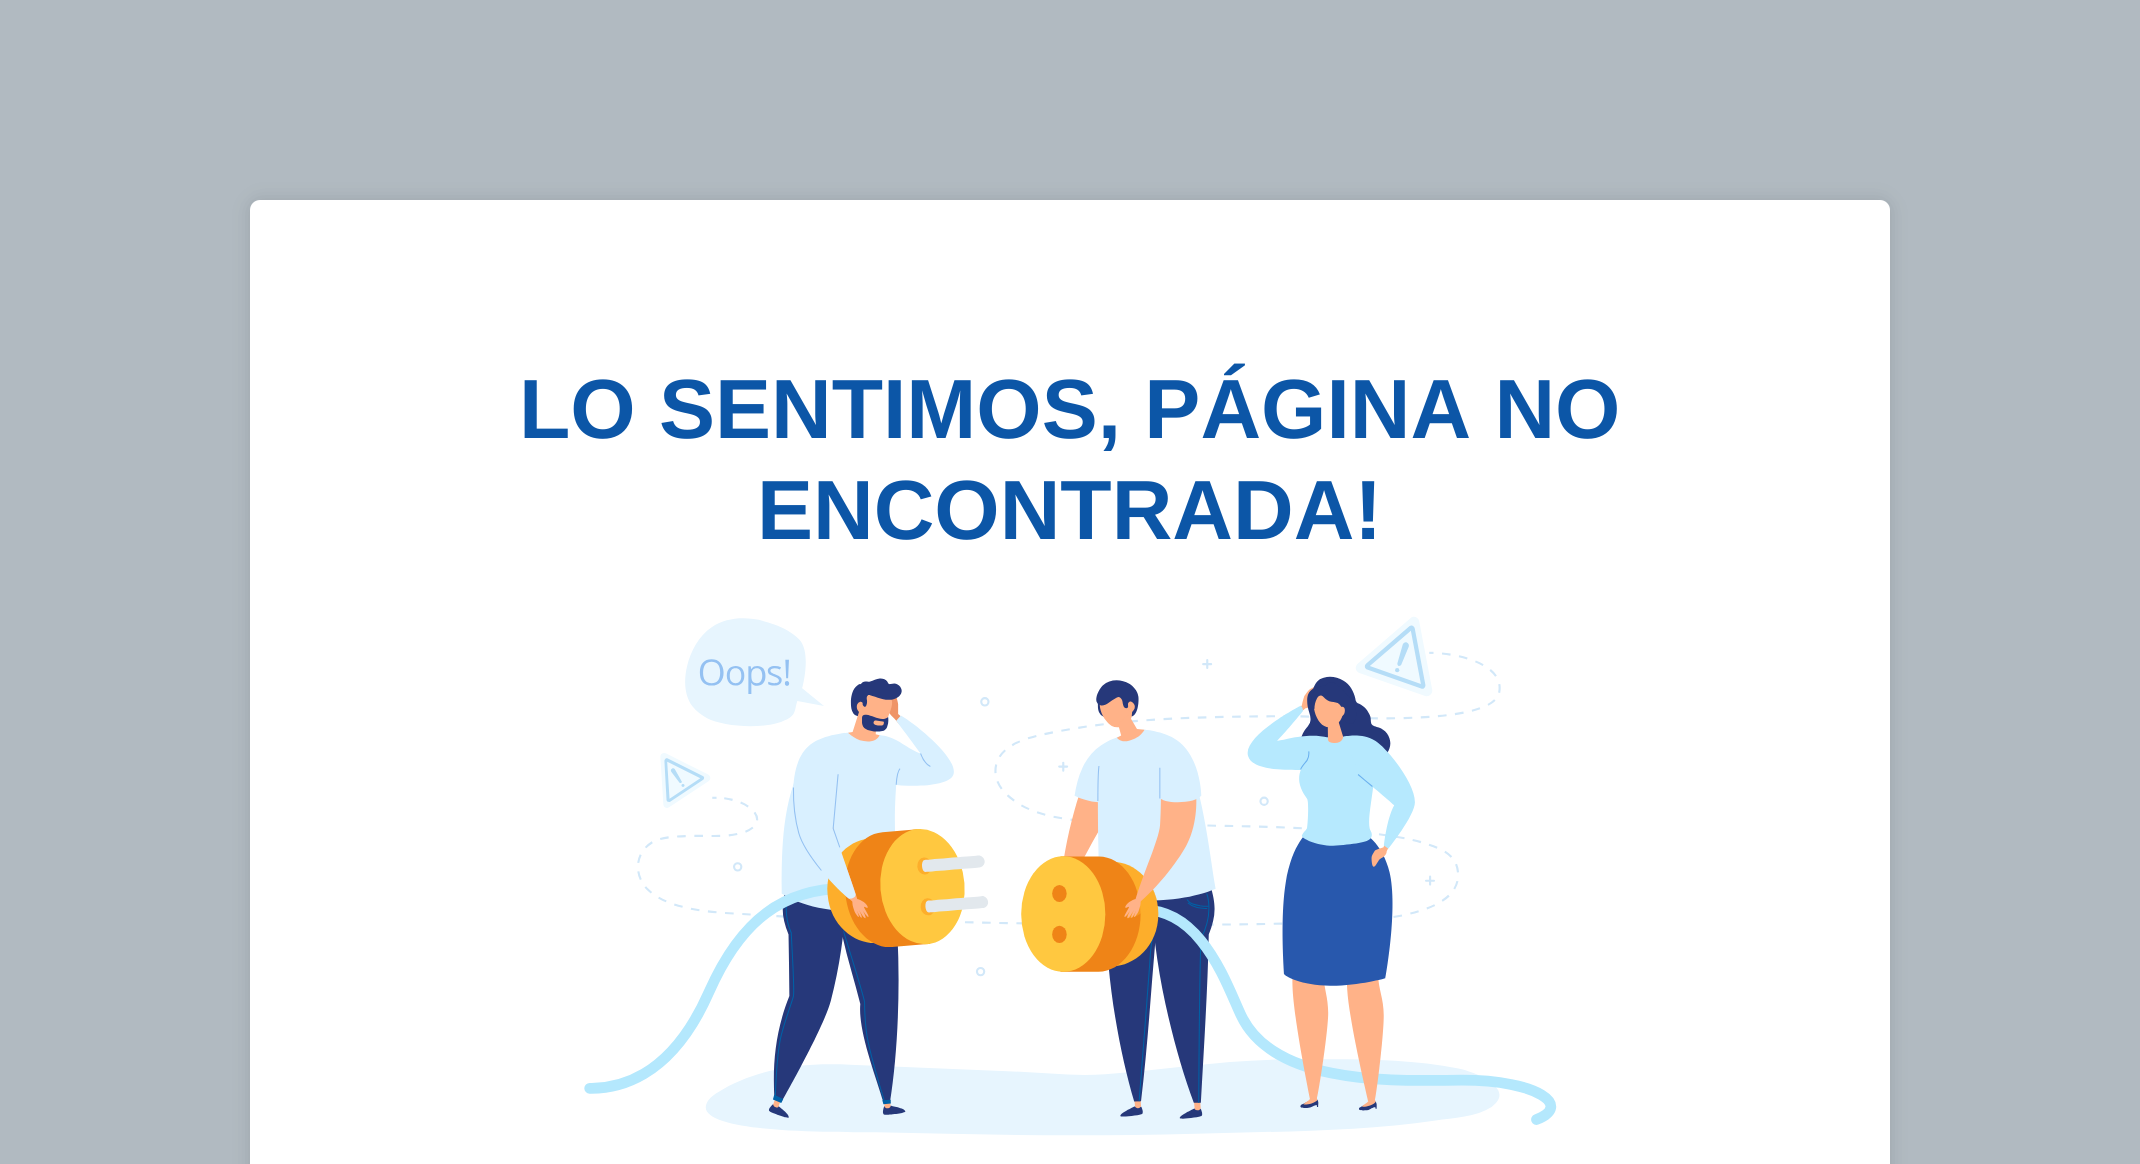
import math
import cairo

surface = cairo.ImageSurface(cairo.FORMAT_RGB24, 2140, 1164)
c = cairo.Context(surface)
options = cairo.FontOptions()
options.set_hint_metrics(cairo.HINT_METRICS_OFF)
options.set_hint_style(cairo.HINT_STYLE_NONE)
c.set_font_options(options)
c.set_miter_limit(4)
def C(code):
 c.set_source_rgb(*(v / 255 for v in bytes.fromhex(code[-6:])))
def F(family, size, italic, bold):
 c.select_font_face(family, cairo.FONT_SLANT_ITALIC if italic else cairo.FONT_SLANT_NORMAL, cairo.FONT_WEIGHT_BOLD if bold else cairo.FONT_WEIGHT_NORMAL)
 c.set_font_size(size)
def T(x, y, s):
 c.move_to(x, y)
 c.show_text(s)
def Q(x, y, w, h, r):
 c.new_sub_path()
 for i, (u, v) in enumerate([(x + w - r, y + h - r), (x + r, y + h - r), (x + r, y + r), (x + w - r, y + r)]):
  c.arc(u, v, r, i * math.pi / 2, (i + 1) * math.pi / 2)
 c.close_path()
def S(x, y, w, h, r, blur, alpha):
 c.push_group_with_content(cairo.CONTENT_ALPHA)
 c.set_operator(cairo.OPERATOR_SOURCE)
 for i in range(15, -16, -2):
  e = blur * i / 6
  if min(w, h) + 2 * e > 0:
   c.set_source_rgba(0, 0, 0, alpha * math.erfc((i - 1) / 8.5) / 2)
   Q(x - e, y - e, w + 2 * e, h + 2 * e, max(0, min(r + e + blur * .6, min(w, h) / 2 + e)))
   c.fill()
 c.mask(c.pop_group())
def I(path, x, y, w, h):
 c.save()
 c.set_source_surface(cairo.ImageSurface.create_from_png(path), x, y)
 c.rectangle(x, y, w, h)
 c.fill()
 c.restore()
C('b1bac1')
c.paint()
C('000000')
S(250,200,1640,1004,10,10,.12)
C('ffffff')
Q(250,200,1640,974,10)
c.fill()
F('Liberation Sans',84,0,1)
C('0c56a7')
T(519,438,'LO SENTIMOS, PÁGINA NO')
T(757,539,'ENCONTRADA!')
I('1.png',584,616,973,520)
surface.write_to_png('o.png')
